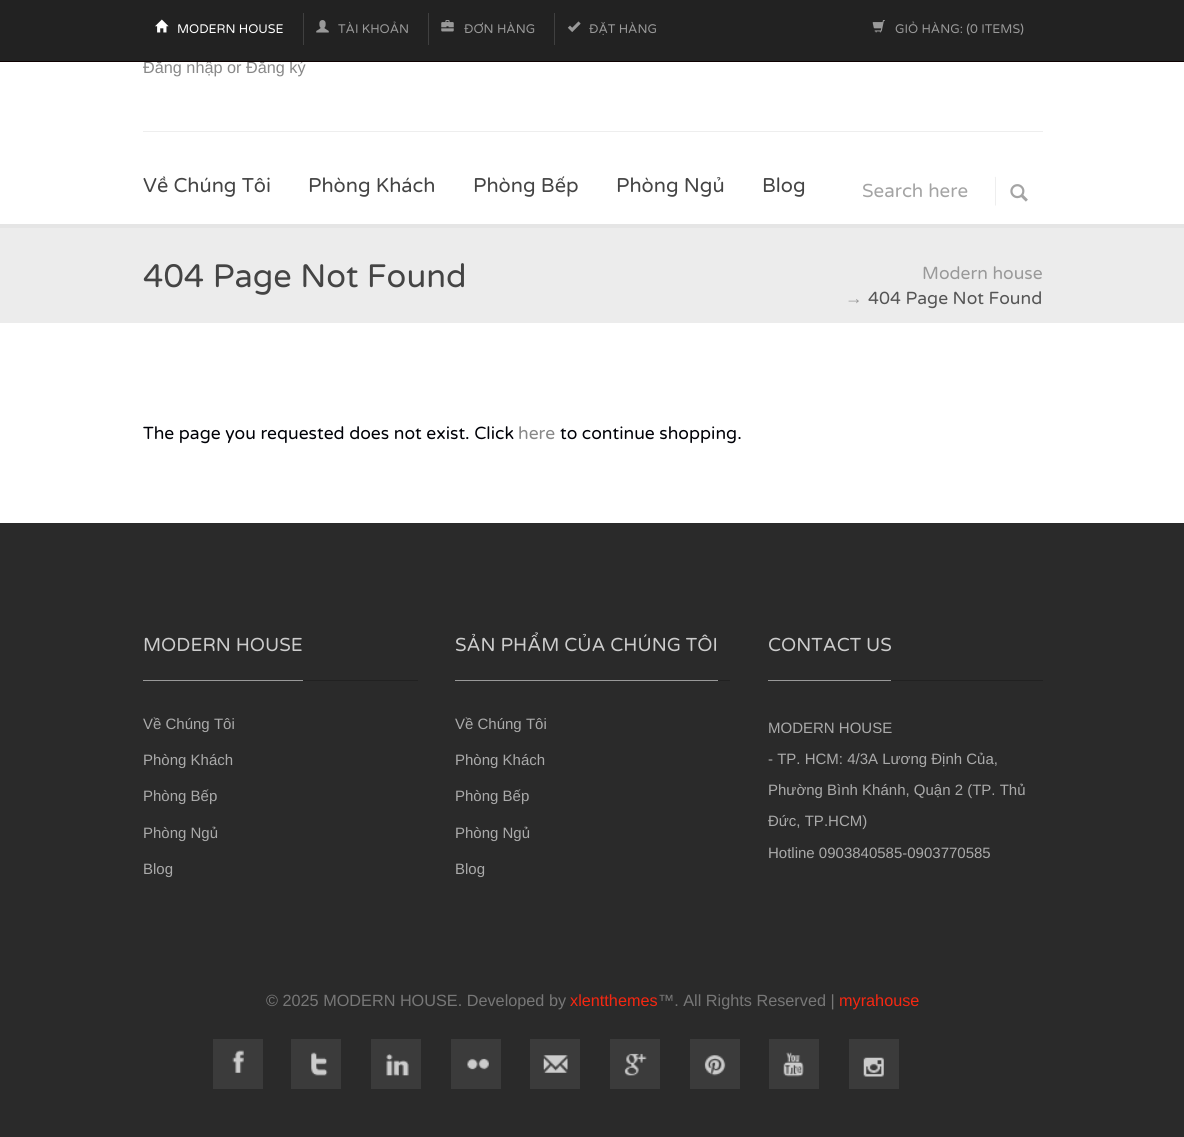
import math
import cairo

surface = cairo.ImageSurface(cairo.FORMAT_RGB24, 1184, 1137)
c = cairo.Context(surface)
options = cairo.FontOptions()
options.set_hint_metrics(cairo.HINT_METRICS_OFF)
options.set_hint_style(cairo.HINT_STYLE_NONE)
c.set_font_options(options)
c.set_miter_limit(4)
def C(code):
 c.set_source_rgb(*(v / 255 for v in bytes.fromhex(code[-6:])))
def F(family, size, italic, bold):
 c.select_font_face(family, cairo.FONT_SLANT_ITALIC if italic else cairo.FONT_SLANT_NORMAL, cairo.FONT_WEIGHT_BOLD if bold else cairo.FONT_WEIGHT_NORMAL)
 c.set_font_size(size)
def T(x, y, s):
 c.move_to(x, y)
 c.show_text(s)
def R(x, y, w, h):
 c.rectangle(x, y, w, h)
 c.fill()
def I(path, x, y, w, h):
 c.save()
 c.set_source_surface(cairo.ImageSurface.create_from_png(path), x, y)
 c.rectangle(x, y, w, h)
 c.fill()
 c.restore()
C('ffffff')
c.paint()
C('222222')
R(0,0,1184,61)
F('Liberation Sans',16.25,0,0)
C('888888')
T(143,73,'Đăng nhập or Đăng ký')
C('0e0101')
R(0,61,1184,1)
I('1.png',155,19,14,14)
F('Varela Round',12.5,0,0)
C('ffffff')
T(177,33,'MODERN HOUSE')
C('404040')
R(303,13,1,32)
I('2.png',316,20,13,13)
C('999999')
T(338,33,'TÀI KHOẢN')
C('404040')
R(428,13,1,32)
I('3.png',441,20,13,12)
C('999999')
T(464,33,'ĐƠN HÀNG')
C('404040')
R(554,13,1,32)
I('4.png',567,21,14,11)
C('999999')
T(589,33,'ĐẶT HÀNG')
I('5.png',872,20,13,13)
T(895,33,'GIỎ HÀNG: (0 ITEMS)')
C('e5e5e5')
R(0,224,1184,4)
C('eeeeee')
R(143,131,900,1)
F('Varela Round',20,0,0)
C('444444')
T(143,192,'Về Chúng Tôi')
T(308,192,'Phòng Khách')
T(473,192,'Phòng Bếp')
T(616,192,'Phòng Ngủ')
T(762,192,'Blog')
C('eeeeee')
c.new_path()
c.move_to(996,176.5)
c.line_to(996,206)
c.line_to(995,205)
c.line_to(995,178)
c.line_to(994.5,178)
c.close_path()
c.fill()
F('Varela Round',18.75,0,0)
C('a4a4a4')
T(862,197,'Search here')
I('6.png',1010,184,18,18)
C('ececec')
R(0,228,1184,95)
F('Varela Round',32.5,0,0)
C('444444')
T(143,287,'404 Page Not Found')
F('Varela Round',17.5,0,0)
C('999999')
T(922,279,'Modern house')
F('Liberation Sans',17.5,0,0)
T(845,304,'→')
F('Varela Round',17.5,0,0)
C('555555')
T(868,304,'404 Page Not Found')
C('000107')
T(143,439,'The page you requested does not exist. Click')
C('888888')
T(518,439,'here')
C('000107')
T(560,439,'to continue shopping.')
C('2a2a2a')
R(0,523,1184,614)
C('212121')
R(303,680,115,1)
C('999999')
R(143,680,160,1)
F('Varela Round',18.75,0,0)
C('cccccc')
T(143,651,'MODERN HOUSE')
F('Liberation Sans',15,0,0)
C('aaaaaa')
T(143,729,'Về Chúng Tôi')
T(143,765,'Phòng Khách')
T(143,801,'Phòng Bếp')
T(143,838,'Phòng Ngủ')
T(143,874,'Blog')
C('212121')
R(718,680,12,1)
C('999999')
R(455,680,263,1)
F('Varela Round',18.75,0,0)
C('cccccc')
T(455,651,'SẢN PHẨM CỦA CHÚNG TÔI')
F('Liberation Sans',15,0,0)
C('aaaaaa')
T(455,729,'Về Chúng Tôi')
T(455,765,'Phòng Khách')
T(455,801,'Phòng Bếp')
T(455,838,'Phòng Ngủ')
T(455,874,'Blog')
C('212121')
R(891,680,152,1)
C('999999')
R(768,680,123,1)
F('Varela Round',18.75,0,0)
C('cccccc')
T(768,651,'CONTACT US')
F('Liberation Sans',15,0,0)
C('aaaaaa')
T(768,733,'MODERN HOUSE')
T(768,764,'- TP. HCM: 4/3A Lương Định Của,')
T(768,795,'Phường Bình Khánh, Quận 2 (TP. Thủ')
T(768,826,'Đức, TP.HCM)')
T(768,858,'Hotline 0903840585-0903770585')
F('Liberation Sans',16.25,0,0)
C('777777')
T(266,1006,'© 2025 MODERN HOUSE. Developed by')
C('f52711')
T(570,1006,'xlentthemes')
C('777777')
T(658,1006,'™. All Rights Reserved |')
C('f52711')
T(839,1006,'myrahouse')
C('3b3b3b')
R(213,1039,50,50)
I('7.png',232,1050,12,23)
R(291,1039,50,50)
I('8.png',311,1052,17,24)
R(371,1039,50,50)
I('9.png',386,1054,23,22)
R(451,1039,50,50)
I('10.png',467,1058,22,12)
R(530,1039,50,50)
I('11.png',543,1055,25,18)
R(610,1039,50,50)
I('12.png',624,1053,23,23)
R(690,1039,50,50)
I('13.png',704,1055,22,21)
R(769,1039,50,50)
I('14.png',783,1052,21,25)
R(849,1039,50,50)
I('15.png',863,1057,21,20)
surface.write_to_png('o.png')
